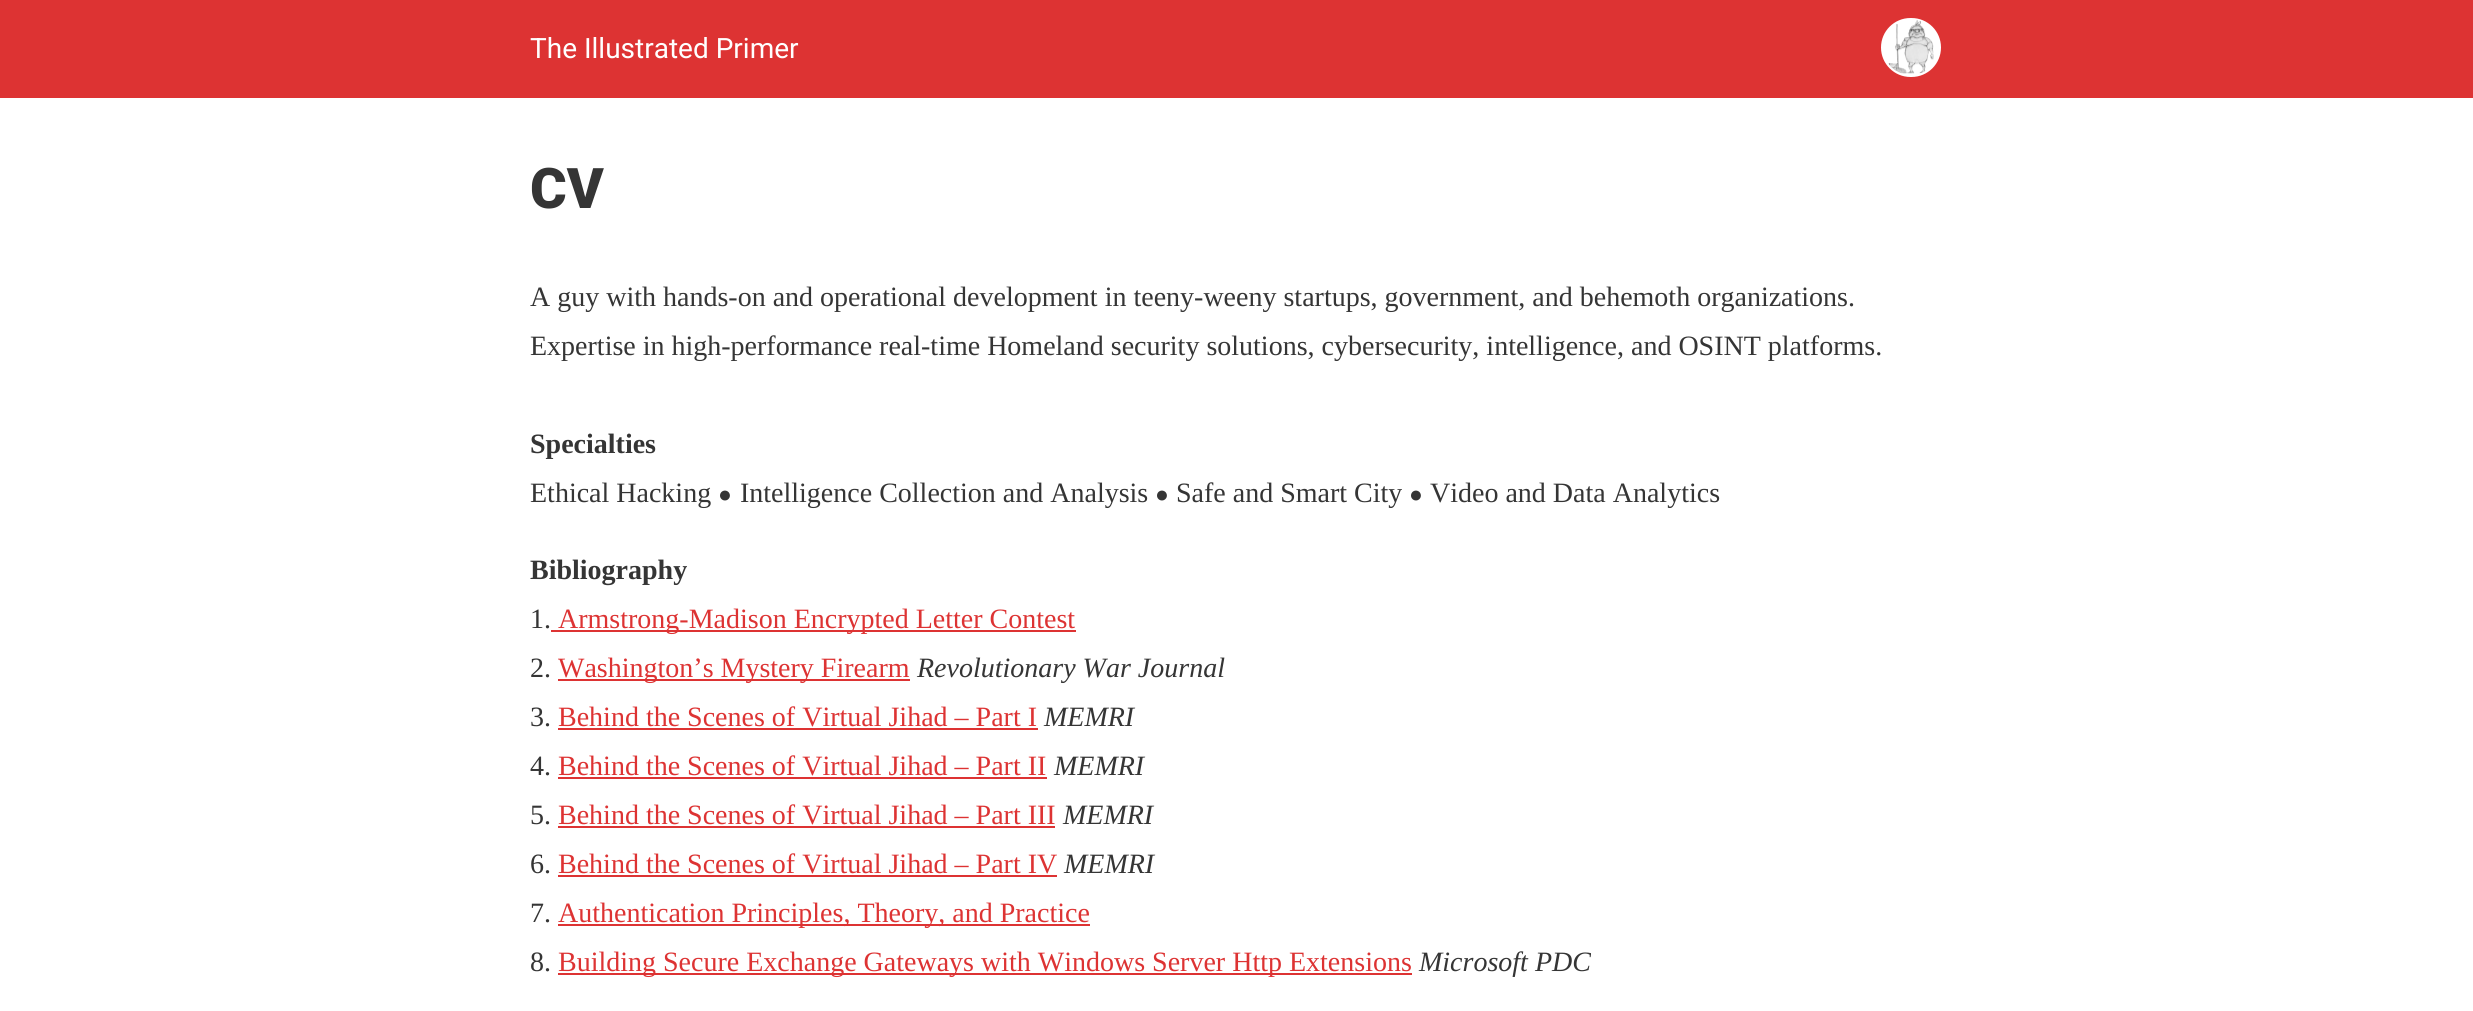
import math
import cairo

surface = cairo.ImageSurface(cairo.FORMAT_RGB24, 2473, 1011)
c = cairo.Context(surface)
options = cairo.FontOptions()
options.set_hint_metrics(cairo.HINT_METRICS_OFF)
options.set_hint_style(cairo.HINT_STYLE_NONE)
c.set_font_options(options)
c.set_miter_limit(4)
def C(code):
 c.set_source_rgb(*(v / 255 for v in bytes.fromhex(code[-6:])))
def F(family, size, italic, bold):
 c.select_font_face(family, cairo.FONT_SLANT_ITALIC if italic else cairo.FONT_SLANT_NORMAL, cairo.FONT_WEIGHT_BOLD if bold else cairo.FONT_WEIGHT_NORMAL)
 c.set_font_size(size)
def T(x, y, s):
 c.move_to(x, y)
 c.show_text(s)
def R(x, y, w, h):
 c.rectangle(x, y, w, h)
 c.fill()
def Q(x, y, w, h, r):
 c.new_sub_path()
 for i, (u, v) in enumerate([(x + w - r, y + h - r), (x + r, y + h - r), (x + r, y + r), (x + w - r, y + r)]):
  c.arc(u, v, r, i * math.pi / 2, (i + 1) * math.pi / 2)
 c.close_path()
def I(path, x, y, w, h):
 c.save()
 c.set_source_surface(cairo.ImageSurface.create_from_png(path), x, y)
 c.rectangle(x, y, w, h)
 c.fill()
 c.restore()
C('ffffff')
c.paint()
C('dd3333')
R(0,0,2473,98)
F('Roboto',28,0,0)
C('ffffff')
T(530,58,'The Illustrated Primer')
Q(1882,19,58,57,28.5)
c.fill_preserve()
c.stroke()
I('1.png',1888,20,46,54)
F('Roboto Black',56,0,0)
C('353535')
T(530,208,'CV')
F('Liberation Serif',28,0,0)
T(530,306,'A guy with hands-on and operational development in teeny-weeny startups, government, and behemoth organizations.')
T(530,355,'Expertise in high-performance real-time Homeland security solutions, cybersecurity, intelligence, and OSINT platforms.')
F('Liberation Serif',28,0,1)
T(530,453,'Specialties')
F('Liberation Serif',28,0,0)
T(530,502,'Ethical Hacking')
F('Liberation Serif',23,0,0)
T(718,502,'●')
F('Liberation Serif',28,0,0)
T(740,502,'Intelligence Collection and Analysis')
F('Liberation Serif',23,0,0)
T(1155,502,'●')
F('Liberation Serif',28,0,0)
T(1176,502,'Safe and Smart City')
F('Liberation Serif',23,0,0)
T(1409,502,'●')
F('Liberation Serif',28,0,0)
T(1430,502,'Video and Data Analytics')
F('Liberation Serif',28,0,1)
T(530,579,'Bibliography')
F('Liberation Serif',28,0,0)
T(530,628,'1.')
C('dd3333')
R(551,630,525,2)
T(558,628,'Armstrong-Madison Encrypted Letter Contest')
C('353535')
T(530,677,'2.')
C('dd3333')
R(558,679,352,2)
T(558,677,'Washington’s Mystery Firearm')
F('Liberation Serif',28,1,0)
C('353535')
T(917,677,'Revolutionary War Journal')
F('Liberation Serif',28,0,0)
T(530,726,'3.')
C('dd3333')
T(558,726,'Behind the Scenes of Virtual Jihad – Part I')
R(558,728,480,2)
F('Liberation Serif',28,1,0)
C('353535')
T(1044,726,'MEMRI')
F('Liberation Serif',28,0,0)
T(530,775,'4.')
C('dd3333')
T(558,775,'Behind the Scenes of Virtual Jihad – Part II')
R(558,777,489,2)
F('Liberation Serif',28,1,0)
C('353535')
T(1054,775,'MEMRI')
F('Liberation Serif',28,0,0)
T(530,824,'5.')
C('dd3333')
T(558,824,'Behind the Scenes of Virtual Jihad – Part III')
R(558,826,497,2)
F('Liberation Serif',28,1,0)
C('353535')
T(1063,824,'MEMRI')
F('Liberation Serif',28,0,0)
T(530,873,'6.')
C('dd3333')
T(558,873,'Behind the Scenes of Virtual Jihad – Part IV')
R(558,875,499,2)
F('Liberation Serif',28,1,0)
C('353535')
T(1064,873,'MEMRI')
F('Liberation Serif',28,0,0)
T(530,922,'7.')
C('dd3333')
R(558,924,532,2)
T(558,922,'Authentication Principles, Theory, and Practice')
C('353535')
T(530,971,'8.')
C('dd3333')
R(558,973,854,2)
T(558,971,'Building Secure Exchange Gateways with Windows Server Http Extensions')
F('Liberation Serif',28,1,0)
C('353535')
T(1419,971,'Microsoft PDC')
surface.write_to_png('o.png')
